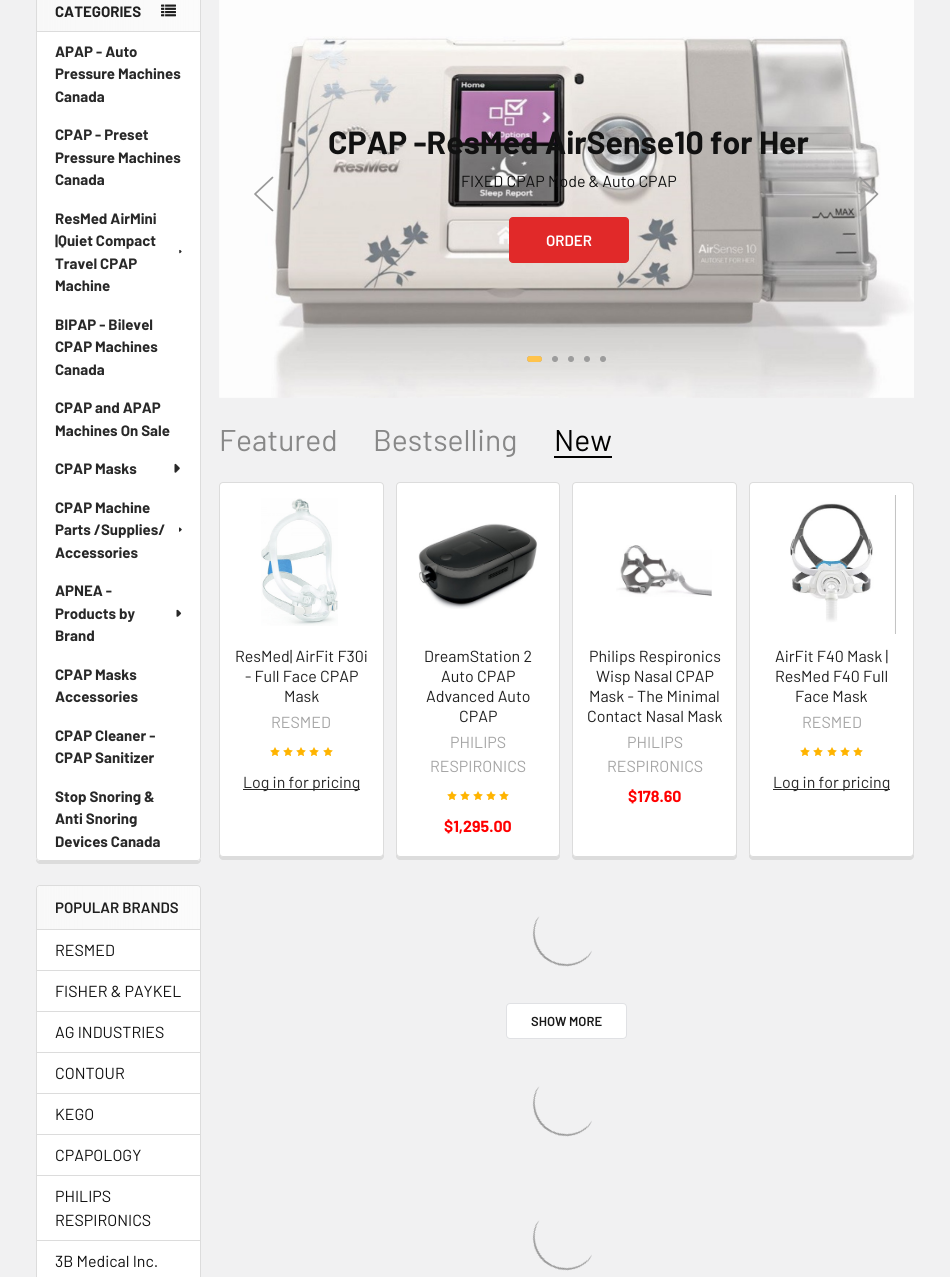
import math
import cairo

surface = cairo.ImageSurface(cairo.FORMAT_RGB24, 950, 1277)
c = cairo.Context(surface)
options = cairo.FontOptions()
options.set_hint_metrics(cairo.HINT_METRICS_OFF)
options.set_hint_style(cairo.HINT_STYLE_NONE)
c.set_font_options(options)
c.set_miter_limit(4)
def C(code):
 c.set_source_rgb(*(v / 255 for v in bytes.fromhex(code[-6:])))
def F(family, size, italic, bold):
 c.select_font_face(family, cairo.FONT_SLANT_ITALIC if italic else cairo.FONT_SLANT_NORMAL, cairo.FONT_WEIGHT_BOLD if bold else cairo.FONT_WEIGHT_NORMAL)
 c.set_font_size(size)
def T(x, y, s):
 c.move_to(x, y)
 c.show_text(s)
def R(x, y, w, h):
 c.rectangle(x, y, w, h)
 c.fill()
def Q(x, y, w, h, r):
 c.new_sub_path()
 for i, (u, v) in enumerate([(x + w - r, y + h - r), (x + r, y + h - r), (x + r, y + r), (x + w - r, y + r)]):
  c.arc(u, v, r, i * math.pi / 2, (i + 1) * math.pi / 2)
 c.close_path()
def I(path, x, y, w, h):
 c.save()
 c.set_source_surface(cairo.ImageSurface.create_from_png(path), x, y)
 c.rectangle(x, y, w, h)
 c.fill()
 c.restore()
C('f1f1f2')
c.paint()
C('dcdcdc')
c.new_path()
c.move_to(36,857)
c.line_to(36,860)
c.curve_to(36,862,38,864,40,864)
c.line_to(197,864)
c.curve_to(199,864,201,862,201,860)
c.line_to(201,857)
c.curve_to(201,859,199,861,197,861)
c.line_to(40,861)
c.curve_to(38,861,36,859,36,857)
c.close_path()
c.fill()
C('ffffff')
Q(36,-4,165,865,4)
c.fill()
gradient = cairo.LinearGradient(36,426,201,426)
gradient.add_color_stop_rgba(0,0.973,0.973,0.973,1)
gradient.add_color_stop_rgba(1,0.973,0.973,0.973,.6)
c.set_source(gradient)
Q(36,-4,165,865,4)
c.fill()
c.rectangle(36.5,-.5,164,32)
C('dcdcdc')
c.set_line_width(1)
c.stroke()
F('Barlow',15,0,1)
C('202020')
T(55,17,'CATEGORIES')
I('1.png',161,4,15,13)
C('ffffff')
c.new_path()
c.move_to(36,32)
c.line_to(201,32)
c.line_to(201,857)
c.curve_to(201,859,199,861,197,861)
c.line_to(40,861)
c.curve_to(38,861,36,859,36,857)
c.close_path()
c.fill()
C('dcdcdc')
c.set_fill_rule(cairo.FILL_RULE_EVEN_ODD)
c.new_path()
c.move_to(36,32)
c.line_to(201,32)
c.line_to(201,857)
c.curve_to(201,859,199,861,197,861)
c.line_to(40,861)
c.curve_to(38,861,36,859,36,857)
c.close_path()
c.move_to(37,32)
c.line_to(200,32)
c.line_to(200,857)
c.curve_to(200,859,199,860,197,860)
c.line_to(40,860)
c.curve_to(38,860,37,859,37,857)
c.close_path()
c.fill()
C('282828')
T(55,57,'APAP - Auto')
T(55,79,'Pressure Machines')
T(55,102,'Canada')
T(55,140,'CPAP - Preset')
T(55,163,'Pressure Machines')
T(55,185,'Canada')
T(55,224,'ResMed AirMini')
T(55,246,'|Quiet Compact')
I('2.png',179,249,3,5)
T(55,269,'Travel CPAP')
T(55,291,'Machine')
T(55,330,'BIPAP - Bilevel')
T(55,352,'CPAP Machines')
T(55,375,'Canada')
T(55,413,'CPAP and APAP')
T(55,436,'Machines On Sale')
T(55,474,'CPAP Masks')
I('3.png',174,463,6,10)
T(55,513,'CPAP Machine')
T(55,535,'Parts /Supplies/')
I('4.png',179,527,3,5)
T(55,558,'Accessories')
T(55,596,'APNEA -')
T(55,619,'Products by')
I('5.png',176,609,6,8)
T(55,641,'Brand')
T(55,680,'CPAP Masks')
T(55,702,'Accessories')
T(55,741,'CPAP Cleaner -')
T(55,763,'CPAP Sanitizer')
T(55,802,'Stop Snoring &')
T(55,824,'Anti Snoring')
T(55,847,'Devices Canada')
C('ffffff')
Q(36.5,885.5,164,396,3.5)
c.fill_preserve()
C('dcdcdc')
c.stroke()
gradient = cairo.LinearGradient(37,908,200,908)
gradient.add_color_stop_rgba(0,0.973,0.973,0.973,1)
gradient.add_color_stop_rgba(1,0.973,0.973,0.973,.6)
c.set_source(gradient)
c.new_path()
c.move_to(40,886)
c.line_to(197,886)
c.curve_to(198.5,886,200,887.5,200,889)
c.line_to(200,930)
c.line_to(37,930)
c.line_to(37,889)
c.curve_to(37,887.5,38.5,886,40,886)
c.close_path()
c.fill()
C('dcdcdc')
R(37,929,163,1)
F('Barlow SemiBold',15,0,0)
C('202020')
T(55,913,'POPULAR BRANDS')
F('Barlow',16,0,0)
C('111111')
T(55,956,'RESMED')
C('dcdcdc')
R(37,970,163,1)
C('111111')
T(55,997,'FISHER & PAYKEL')
C('dcdcdc')
R(37,1011,163,1)
C('111111')
T(55,1038,'AG INDUSTRIES')
C('dcdcdc')
R(37,1052,163,1)
C('111111')
T(55,1079,'CONTOUR')
C('dcdcdc')
R(37,1093,163,1)
C('111111')
T(55,1120,'KEGO')
C('dcdcdc')
R(37,1134,163,1)
C('111111')
T(55,1161,'CPAPOLOGY')
C('dcdcdc')
R(37,1175,163,1)
C('111111')
T(55,1202,'PHILIPS')
T(55,1226,'RESPIRONICS')
C('dcdcdc')
R(37,1240,163,1)
C('111111')
T(55,1267,'3B Medical Inc.')
I('6.png',219,0,695,398)
c.new_path()
c.move_to(272.5,177.5)
c.line_to(255,194)
c.line_to(272.5,210.5)
C('989898')
c.set_line_width(1.7)
c.set_line_cap(cairo.LINE_CAP_ROUND)
c.set_line_join(cairo.LINE_JOIN_ROUND)
c.stroke()
F('Barlow',32,0,1)
C('111111')
T(328,154,'CPAP -ResMed AirSense10 for Her')
F('Barlow',16,0,0)
T(461,187,'FIXED CPAP Mode & Auto CPAP')
C('e12929')
Q(509.5,217.5,119,45,3.5)
c.fill_preserve()
c.set_line_width(1)
c.set_line_cap(cairo.LINE_CAP_BUTT)
c.set_line_join(cairo.LINE_JOIN_MITER)
c.stroke()
F('Barlow SemiBold',15,0,0)
C('ffffff')
T(546,246,'ORDER')
c.new_path()
c.move_to(860,177.5)
c.line_to(877.5,194)
c.line_to(860.5,210.5)
C('989898')
c.set_line_width(1.7)
c.set_line_cap(cairo.LINE_CAP_ROUND)
c.set_line_join(cairo.LINE_JOIN_ROUND)
c.stroke()
Q(527.5,356.5,14,5,2.5)
C('9c9c9c')
c.set_line_width(1)
c.set_line_cap(cairo.LINE_CAP_BUTT)
c.set_line_join(cairo.LINE_JOIN_MITER)
c.stroke()
C('ffc34b')
Q(527,356,15,6,3)
c.fill()
C('9c9c9c')
c.arc(555,359,2.5,0,2 * math.pi)
c.fill_preserve()
c.stroke()
c.arc(571,359,2.5,0,2 * math.pi)
c.fill_preserve()
c.stroke()
c.arc(587,359,2.5,0,2 * math.pi)
c.fill_preserve()
c.stroke()
c.arc(603,359,2.5,0,2 * math.pi)
c.fill_preserve()
c.stroke()
F('Barlow',30,0,0)
C('888888')
T(219,451,'Featured')
T(373,451,'Bestselling')
C('000000')
R(554,456,58,2)
T(554,451,'New')
C('dcdcdc')
c.set_fill_rule(cairo.FILL_RULE_WINDING)
c.new_path()
c.move_to(219,853)
c.line_to(219,856)
c.curve_to(219,858,221,860,223,860)
c.line_to(380,860)
c.curve_to(382,860,384,858,384,856)
c.line_to(384,853)
c.curve_to(384,855,382,857,380,857)
c.line_to(223,857)
c.curve_to(221,857,219,855,219,853)
c.close_path()
c.fill()
C('ffffff')
Q(219.5,482.5,164,374,3.5)
c.fill_preserve()
C('dcdcdc')
c.stroke()
I('7.png',261,498,77,128)
F('Barlow',16,0,0)
C('202020')
T(235,662,'ResMed| AirFit F30i')
T(245,682,'- Full Face CPAP')
T(284,702,'Mask')
C('a5a5a5')
T(271,728,'RESMED')
I('8.png',270,747,10,9)
I('8.png',283,747,10,9)
I('8.png',296,747,10,9)
I('8.png',309,747,10,9)
I('8.png',323,747,10,9)
C('282828')
R(243,789,117,1)
T(243,788,'Log in for pricing')
C('dcdcdc')
c.new_path()
c.move_to(396,853)
c.line_to(396,856)
c.curve_to(396,858,398,860,400,860)
c.line_to(556,860)
c.curve_to(558,860,560,858,560,856)
c.line_to(560,853)
c.curve_to(560,855,558,857,556,857)
c.line_to(400,857)
c.curve_to(398,857,396,855,396,853)
c.close_path()
c.fill()
C('ffffff')
Q(396.5,482.5,163,374,3.5)
c.fill_preserve()
C('dcdcdc')
c.stroke()
I('9.png',418,523,120,86)
C('202020')
T(424,662,'DreamStation 2')
T(441,682,'Auto CPAP')
T(426,702,'Advanced Auto')
T(459,722,'CPAP')
C('a5a5a5')
T(450,748,'PHILIPS')
T(430,772,'RESPIRONICS')
I('8.png',447,791,10,9)
I('8.png',460,791,10,9)
I('8.png',473,791,10,9)
I('8.png',486,791,10,9)
I('8.png',499,791,10,9)
F('Barlow',16,0,1)
C('ff0000')
T(444,832,'$1,295.00')
C('dcdcdc')
c.new_path()
c.move_to(572,853)
c.line_to(572,856)
c.curve_to(572,858,574,860,576,860)
c.line_to(733,860)
c.curve_to(735,860,737,858,737,856)
c.line_to(737,853)
c.curve_to(737,855,735,857,733,857)
c.line_to(576,857)
c.curve_to(574,857,572,855,572,853)
c.close_path()
c.fill()
C('ffffff')
Q(572.5,482.5,164,374,3.5)
c.fill_preserve()
C('dcdcdc')
c.stroke()
I('10.png',616,545,96,52)
F('Barlow',16,0,0)
C('202020')
T(589,662,'Philips Respironics')
T(596,682,'Wisp Nasal CPAP')
T(589,702,'Mask - The Minimal')
T(587,722,'Contact Nasal Mask')
C('a5a5a5')
T(627,748,'PHILIPS')
T(607,772,'RESPIRONICS')
F('Barlow',16,0,1)
C('ff0000')
T(628,802,'$178.60')
C('dcdcdc')
c.new_path()
c.move_to(749,853)
c.line_to(749,856)
c.curve_to(749,858,751,860,753,860)
c.line_to(910,860)
c.curve_to(912,860,914,858,914,856)
c.line_to(914,853)
c.curve_to(914,855,912,857,910,857)
c.line_to(753,857)
c.curve_to(751,857,749,855,749,853)
c.close_path()
c.fill()
C('ffffff')
Q(749.5,482.5,164,374,3.5)
c.fill_preserve()
C('dcdcdc')
c.stroke()
I('11.png',790,495,106,139)
F('Barlow',16,0,0)
C('202020')
T(775,662,'AirFit F40 Mask |')
T(775,682,'ResMed F40 Full')
T(795,702,'Face Mask')
C('a5a5a5')
T(802,728,'RESMED')
I('8.png',800,747,10,9)
I('8.png',813,747,10,9)
I('8.png',827,747,10,9)
I('8.png',840,747,10,9)
I('8.png',853,747,10,9)
C('282828')
R(773,789,117,1)
T(773,788,'Log in for pricing')
I('12.png',532,916,60,51)
C('ffffff')
Q(506.5,1003.5,120,35,3.5)
c.fill_preserve()
C('e0e1e4')
c.stroke()
F('Barlow SemiBold',13,0,0)
C('1a1a1a')
T(531,1026,'SHOW MORE')
I('13.png',532,1086,60,51)
I('13.png',532,1220,60,51)
surface.write_to_png('o.png')
